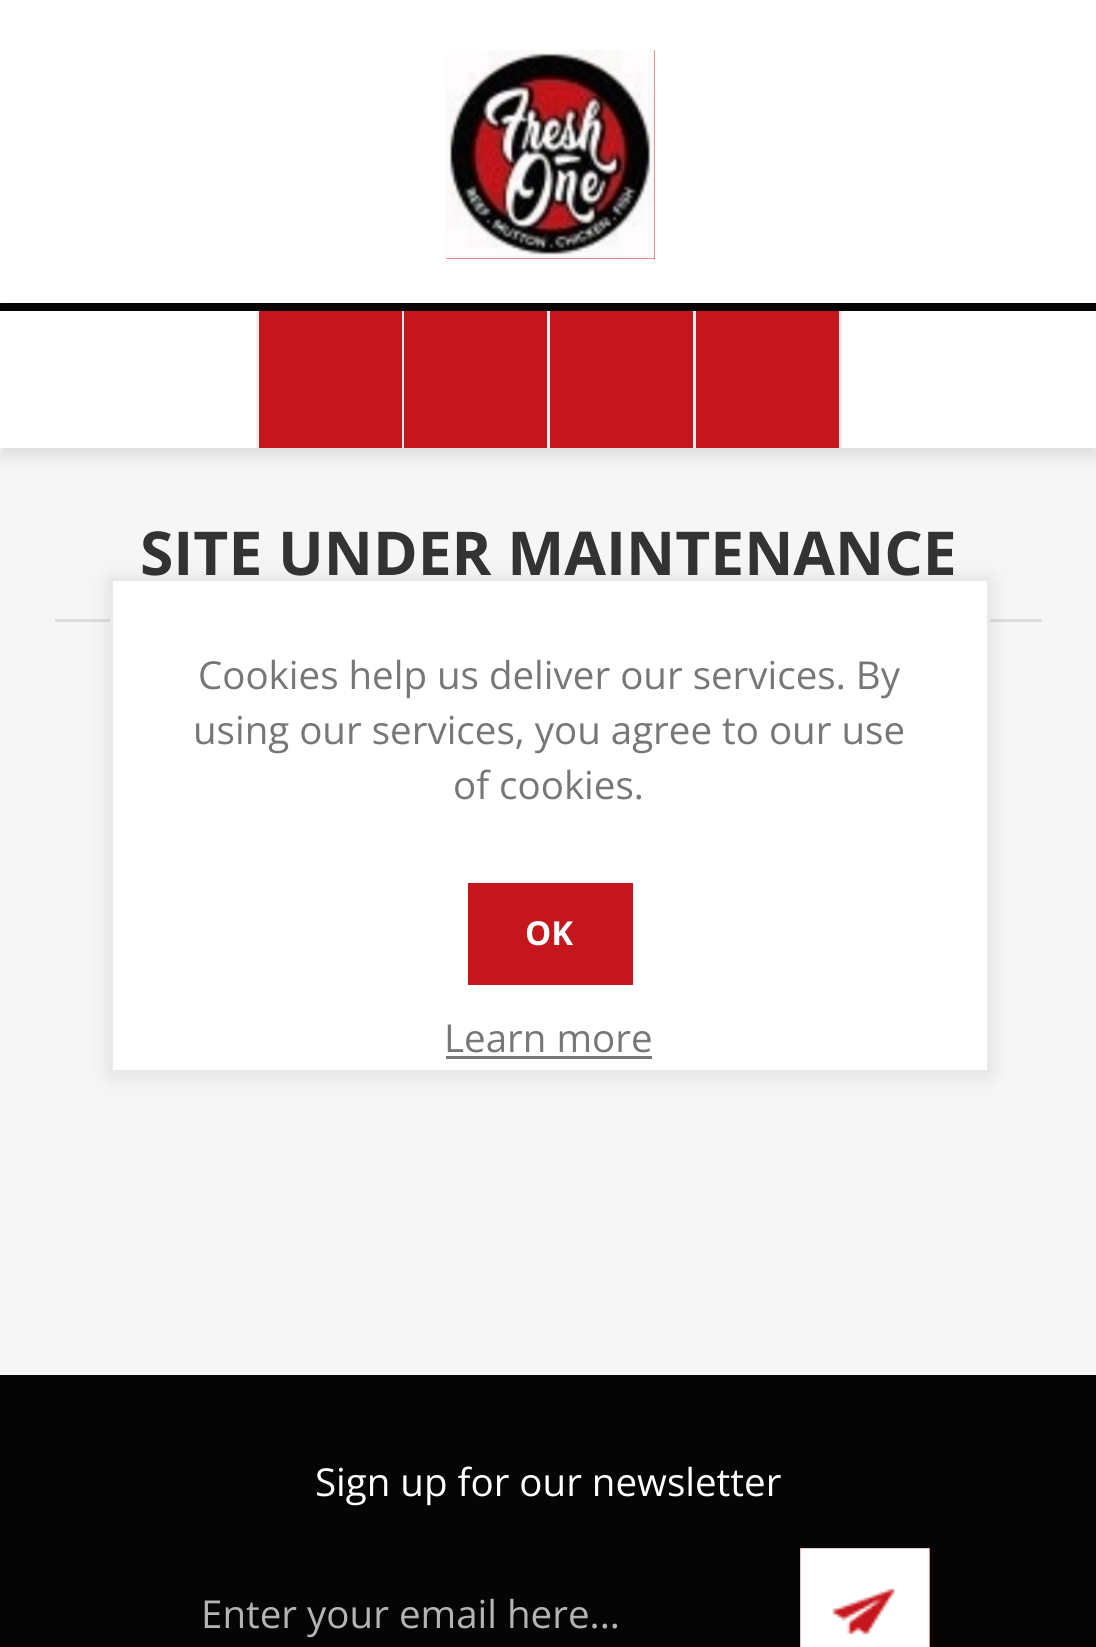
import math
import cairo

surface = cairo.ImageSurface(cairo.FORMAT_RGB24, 1096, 1647)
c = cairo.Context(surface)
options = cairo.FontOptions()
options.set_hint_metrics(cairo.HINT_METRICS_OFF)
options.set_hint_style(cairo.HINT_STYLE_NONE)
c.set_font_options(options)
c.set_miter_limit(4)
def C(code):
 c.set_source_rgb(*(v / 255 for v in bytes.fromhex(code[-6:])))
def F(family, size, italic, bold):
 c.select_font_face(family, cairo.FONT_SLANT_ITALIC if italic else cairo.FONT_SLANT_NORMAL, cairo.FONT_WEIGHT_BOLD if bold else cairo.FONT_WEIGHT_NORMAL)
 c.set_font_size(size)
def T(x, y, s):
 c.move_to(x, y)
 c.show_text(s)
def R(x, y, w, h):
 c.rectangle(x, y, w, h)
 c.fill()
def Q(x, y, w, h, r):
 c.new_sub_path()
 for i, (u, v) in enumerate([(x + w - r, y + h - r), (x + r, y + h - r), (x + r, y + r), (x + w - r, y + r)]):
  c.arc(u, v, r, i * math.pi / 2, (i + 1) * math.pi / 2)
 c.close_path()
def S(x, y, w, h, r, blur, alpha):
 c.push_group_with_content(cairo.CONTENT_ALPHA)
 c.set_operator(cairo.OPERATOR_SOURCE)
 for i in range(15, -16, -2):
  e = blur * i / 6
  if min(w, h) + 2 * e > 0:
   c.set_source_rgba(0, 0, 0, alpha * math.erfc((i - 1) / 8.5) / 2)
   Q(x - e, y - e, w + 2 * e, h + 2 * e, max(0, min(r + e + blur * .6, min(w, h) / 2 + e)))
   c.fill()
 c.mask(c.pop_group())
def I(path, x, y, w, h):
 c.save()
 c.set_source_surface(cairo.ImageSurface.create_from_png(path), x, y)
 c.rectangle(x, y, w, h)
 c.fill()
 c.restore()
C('ffffff')
c.paint()
C('f6f6f6')
R(0,448,1096,927)
C('c5181e')
R(446,50,209,209)
I('1.png',446,49,209,210)
C('000000')
S(0,311,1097,146,0,7,.1)
C('ffffff')
R(0,311,1096,137)
C('050505')
R(0,303,1096,8)
C('c4161c')
R(259,311,143,137)
C('eeeeee')
R(402,311,2,137)
R(256,311,3,137)
C('c4161c')
R(404,311,143,137)
C('eeeeee')
R(547,311,3,137)
C('c4161c')
R(550,311,143,137)
C('eeeeee')
R(693,311,3,137)
C('c4161c')
R(696,311,143,137)
C('eeeeee')
R(839,311,3,137)
C('dddddd')
R(55,619,987,3)
F('Open Sans',60.5,0,1)
C('333333')
T(140,575,'SITE UNDER MAINTENANCE')
C('000000')
S(110,580,880,495,0,11,.1)
C('ffffff')
c.rectangle(111.5,579.5,877,492)
c.fill_preserve()
C('e9e9e9')
c.set_line_width(3)
c.stroke()
F('Open Sans',38.5,0,0)
C('777777')
T(198,689,'Cookies help us deliver our services. By')
T(193,744,'using our services, you agree to our use')
T(453,799,'of cookies.')
C('c4161c')
R(468,883,165,102)
F('Open Sans',33,0,1)
C('ffffff')
T(525,945,'OK')
F('Open Sans',38.5,0,0)
C('777777')
T(444,1052,'Learn more')
R(446,1056,206,3)
C('050505')
R(0,1375,1096,272)
C('ffffff')
T(315,1496,'Sign up for our newsletter')
C('b4b4b4')
T(201,1628,'Enter your email here...')
C('c4161c')
R(800,1548,130,99)
I('2.png',800,1548,130,99)
surface.write_to_png('o.png')
